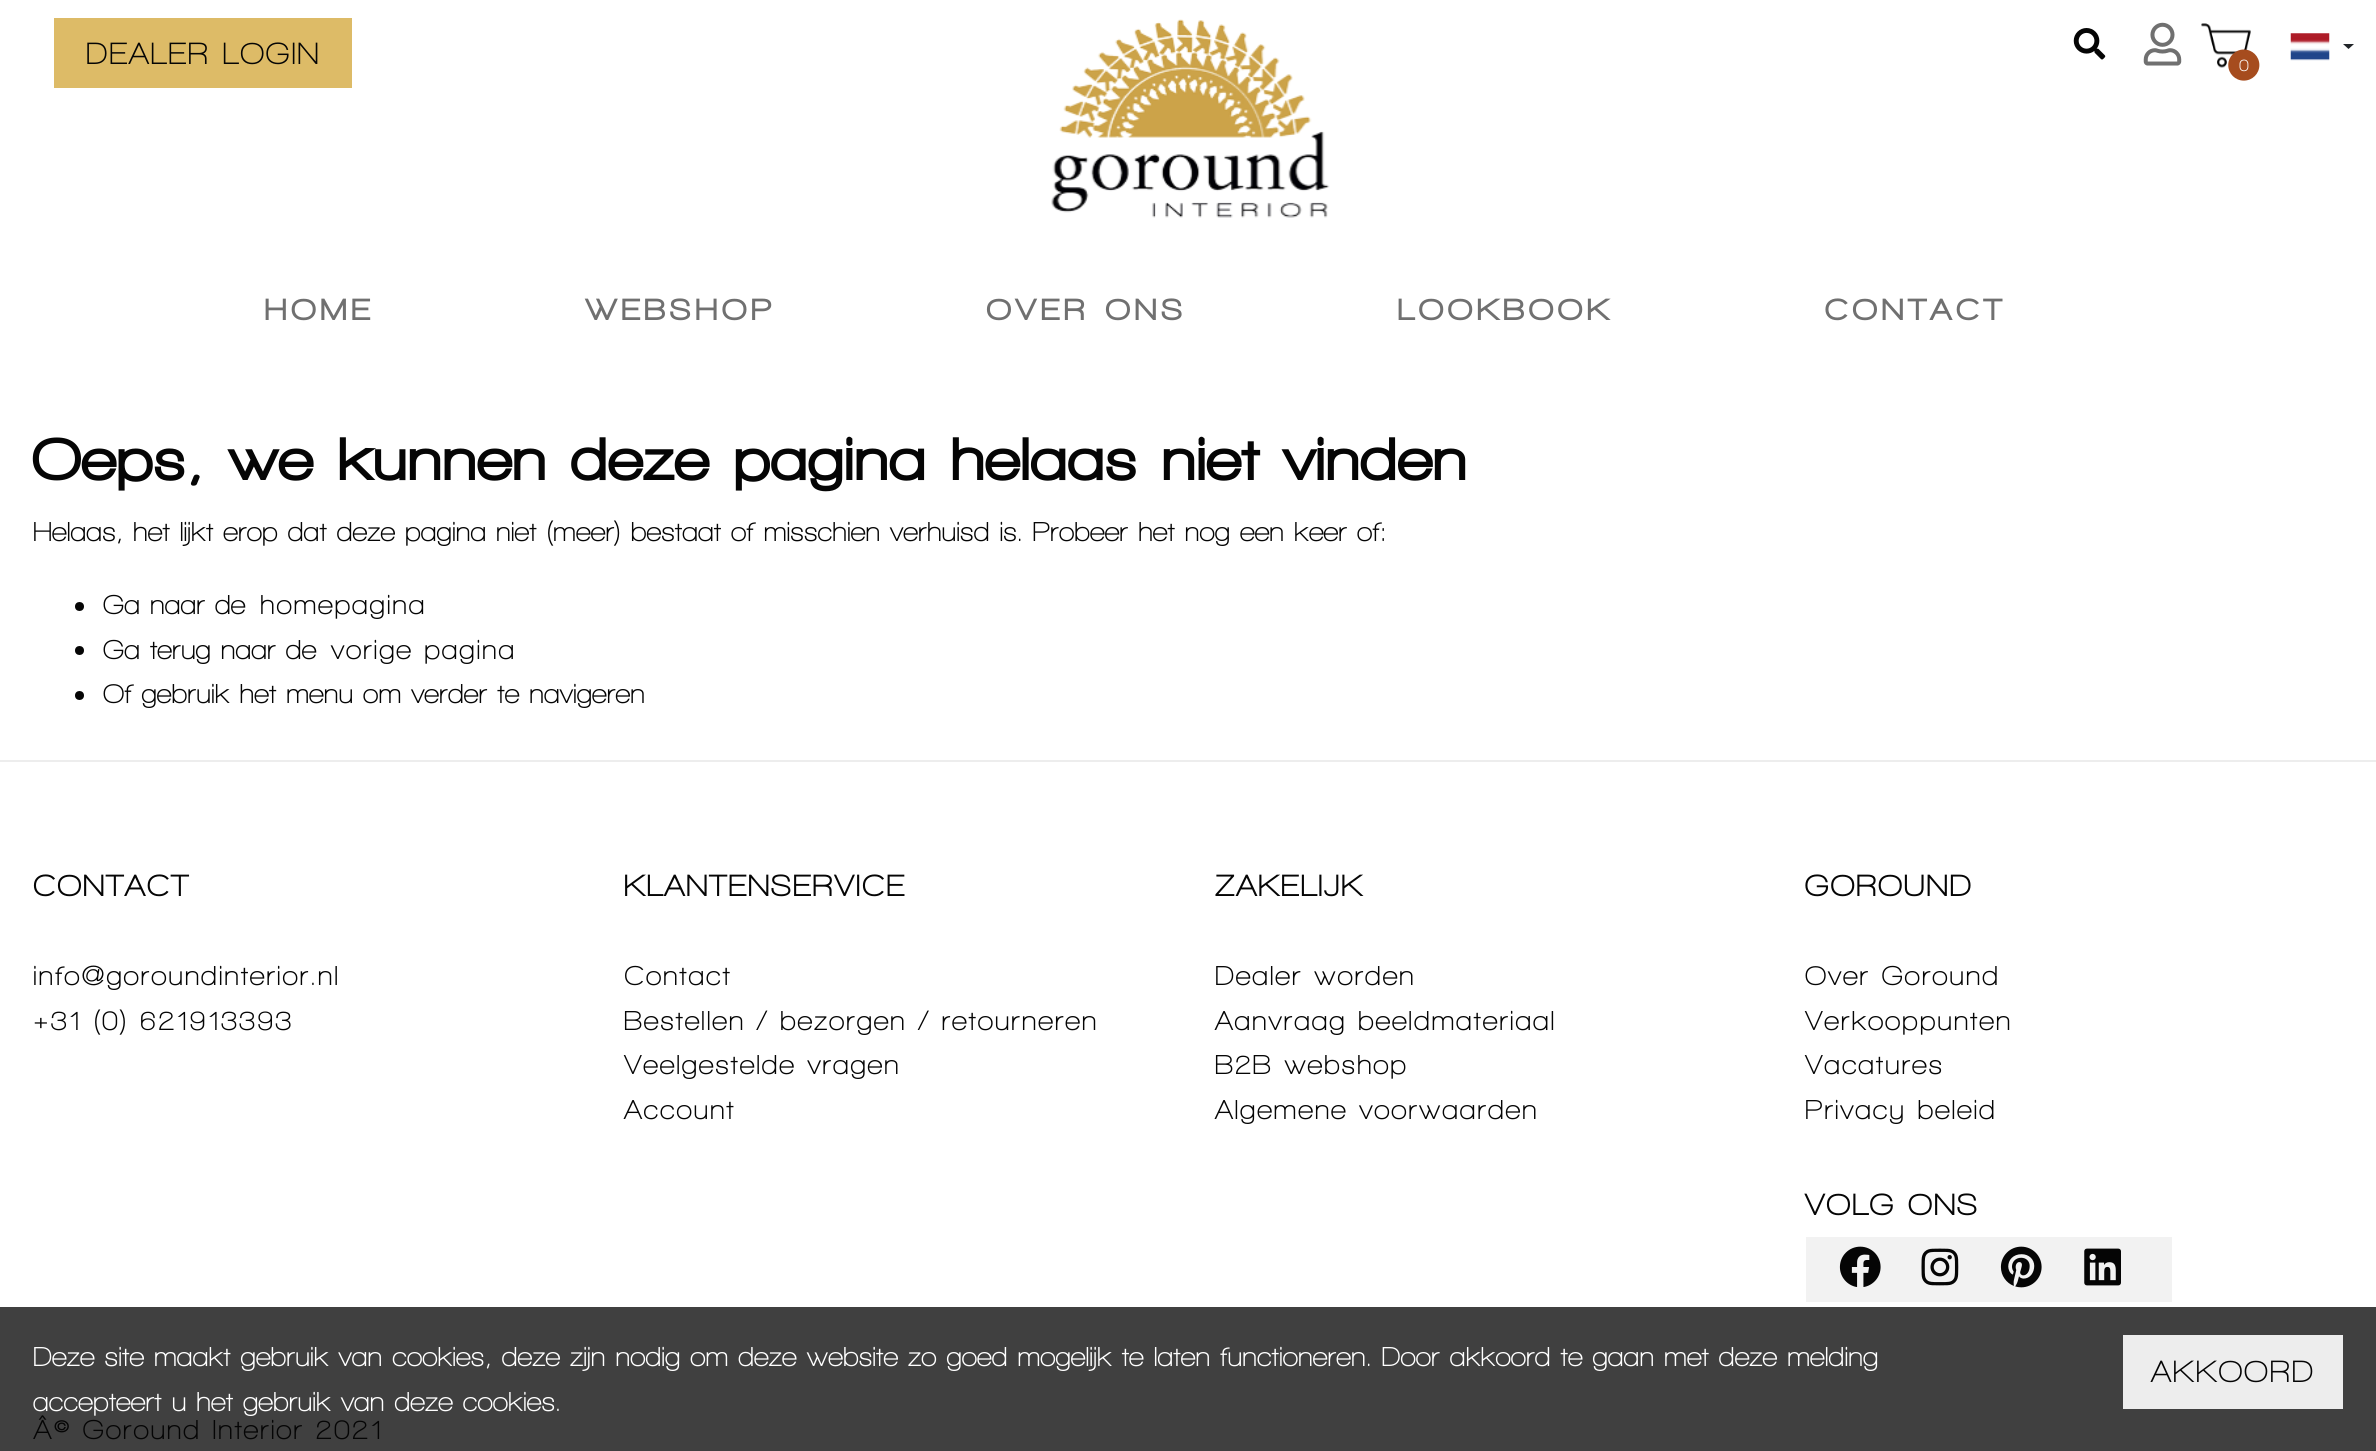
import math
import cairo

surface = cairo.ImageSurface(cairo.FORMAT_RGB24, 2376, 1451)
c = cairo.Context(surface)
options = cairo.FontOptions()
options.set_hint_metrics(cairo.HINT_METRICS_OFF)
options.set_hint_style(cairo.HINT_STYLE_NONE)
c.set_font_options(options)
c.set_miter_limit(4)
def C(code):
 c.set_source_rgb(*(v / 255 for v in bytes.fromhex(code[-6:])))
def F(family, size, italic, bold):
 c.select_font_face(family, cairo.FONT_SLANT_ITALIC if italic else cairo.FONT_SLANT_NORMAL, cairo.FONT_WEIGHT_BOLD if bold else cairo.FONT_WEIGHT_NORMAL)
 c.set_font_size(size)
def T(x, y, s):
 c.move_to(x, y)
 c.show_text(s)
def L(x, y, s, letter, word):
 c.move_to(x, y)
 for ch in s:
  c.show_text(ch)
  c.rel_move_to(letter + word * (ch == ' '), 0)
def R(x, y, w, h):
 c.rectangle(x, y, w, h)
 c.fill()
def I(path, x, y, w, h):
 c.save()
 c.set_source_surface(cairo.ImageSurface.create_from_png(path), x, y)
 c.rectangle(x, y, w, h)
 c.fill()
 c.restore()
C('ffffff')
c.paint()
C('404040')
R(0,1307,2376,144)
I('1.png',1051,19,279,199)
C('ddbb67')
R(54,18,298,70)
F('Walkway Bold',31.5,0,1)
C('050505')
L(86,64,'DEALER LOGIN',1.75,0)
I('2.png',2073,28,33,32)
I('3.png',2143,22,39,44)
I('4.png',2201,23,50,45)
I('5.png',2228,49,32,32)
F('Walkway Bold',17,0,1)
C('ffffff')
L(2239,71,'0',1.75,0)
I('6.png',2290,33,40,28)
C('212529')
c.new_path()
c.move_to(2343,44)
c.line_to(2354,44)
c.line_to(2348.5,49)
c.close_path()
c.fill()
F('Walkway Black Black',31.5,0,0)
C('707070')
L(265,320,'HOME',5.25,0)
L(586,320,'WEBSHOP',5.25,0)
L(987,320,'OVER ONS',5.25,0)
L(1398,320,'LOOKBOOK',5.25,0)
L(1825,320,'CONTACT',5.25,0)
F('Walkway Black Black',63,0,0)
C('050505')
L(33,480,'Oeps, we kunnen deze pagina helaas niet vinden',1.75,0)
F('Walkway Bold',28,0,1)
T(33,541,'Helaas, het lijkt erop dat deze pagina niet (meer) bestaat of misschien verhuisd is. Probeer het nog een keer of:')
c.new_path()
c.arc(79.5,606.5,4.5,0,2 * math.pi)
c.fill()
T(103,614,'Ga naar de')
L(260,614,'homepagina',1.75,0)
c.new_path()
c.arc(79.5,650.5,4.5,0,2 * math.pi)
c.fill()
T(103,659,'Ga terug naar de')
L(331,659,'vorige pagina',1.75,0)
c.new_path()
c.arc(79.5,695.5,4.5,0,2 * math.pi)
c.fill()
T(103,703,'Of gebruik het menu om verder te navigeren')
C('ffffff')
T(33,1366,'Deze site maakt gebruik van cookies, deze zijn nodig om deze website zo goed mogelijk te laten functioneren. Door akkoord te gaan met deze melding')
T(33,1411,'accepteert u het gebruik van deze cookies.')
C('ededed')
R(2123,1335,220,74)
F('Walkway Bold',31.5,0,1)
C('050505')
L(2151,1382,'AKKOORD',1.75,0)
C('ededed')
R(0,760,2376,2)
F('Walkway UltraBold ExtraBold',31.5,0,0)
C('050505')
L(33,896,'CONTACT',1.75,0)
F('Walkway Bold',28,0,1)
L(33,985,'info@goroundinterior.nl',1.75,0)
L(33,1030,'+31 (0) 621913393',1.75,0)
F('Walkway UltraBold ExtraBold',31.5,0,0)
L(624,896,'KLANTENSERVICE',1.75,0)
F('Walkway Bold',28,0,1)
L(624,985,'Contact',1.75,0)
L(624,1030,'Bestellen / bezorgen / retourneren',1.75,0)
L(624,1074,'Veelgestelde vragen',1.75,0)
L(624,1119,'Account',1.75,0)
F('Walkway UltraBold ExtraBold',31.5,0,0)
L(1215,896,'ZAKELIJK',1.75,0)
F('Walkway Bold',28,0,1)
L(1215,985,'Dealer worden',1.75,0)
L(1215,1030,'Aanvraag beeldmateriaal',1.75,0)
L(1215,1074,'B2B webshop',1.75,0)
L(1215,1119,'Algemene voorwaarden',1.75,0)
F('Walkway UltraBold ExtraBold',31.5,0,0)
L(1805,896,'GOROUND',1.75,0)
F('Walkway Bold',28,0,1)
L(1805,985,'Over Goround',1.75,0)
L(1805,1030,'Verkooppunten',1.75,0)
L(1805,1074,'Vacatures',1.75,0)
L(1805,1119,'Privacy beleid',1.75,0)
F('Walkway UltraBold ExtraBold',31.5,0,0)
L(1805,1215,'VOLG ONS',1.75,0)
C('f2f2f2')
R(1806,1237,366,65)
I('7.png',1839,1246,42,41)
I('8.png',1921,1248,38,38)
I('9.png',2000,1246,42,42)
I('10.png',2084,1248,37,38)
F('Walkway Bold',28,0,1)
C('050505')
L(33,1439,'Â© Goround Interior 2021',1.75,0)
surface.write_to_png('o.png')
